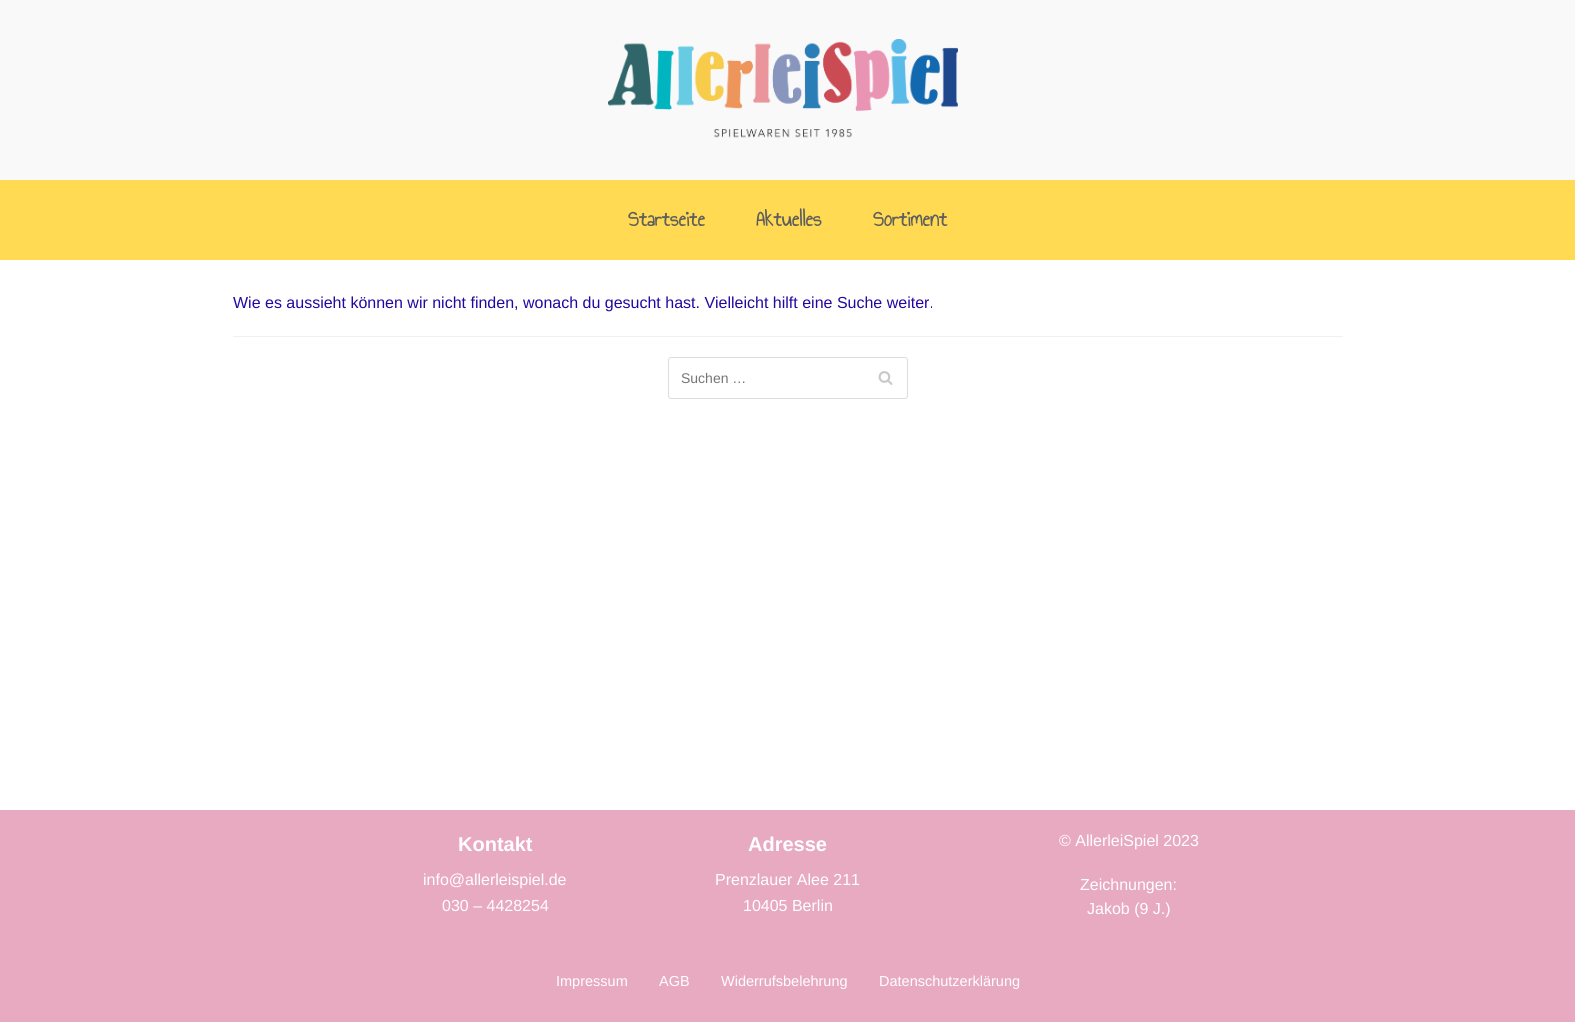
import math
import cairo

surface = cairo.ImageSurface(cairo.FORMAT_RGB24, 1575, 1022)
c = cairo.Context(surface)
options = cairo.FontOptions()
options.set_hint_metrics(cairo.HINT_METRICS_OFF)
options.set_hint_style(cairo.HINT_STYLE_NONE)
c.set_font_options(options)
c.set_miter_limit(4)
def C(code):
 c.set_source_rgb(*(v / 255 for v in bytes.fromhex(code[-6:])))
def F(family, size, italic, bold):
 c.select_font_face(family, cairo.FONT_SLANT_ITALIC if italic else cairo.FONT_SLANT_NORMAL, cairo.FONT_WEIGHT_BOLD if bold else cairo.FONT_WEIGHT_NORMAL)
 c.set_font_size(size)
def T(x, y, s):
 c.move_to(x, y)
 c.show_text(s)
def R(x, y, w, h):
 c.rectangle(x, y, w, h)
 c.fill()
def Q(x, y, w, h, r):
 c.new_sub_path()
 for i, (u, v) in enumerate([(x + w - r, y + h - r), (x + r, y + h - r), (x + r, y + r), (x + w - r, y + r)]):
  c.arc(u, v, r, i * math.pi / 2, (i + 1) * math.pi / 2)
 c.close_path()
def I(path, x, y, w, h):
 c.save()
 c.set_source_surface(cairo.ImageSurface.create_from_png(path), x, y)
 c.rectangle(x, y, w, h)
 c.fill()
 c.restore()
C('ffffff')
c.paint()
C('f9f9f9')
R(0,0,1575,180)
I('1.png',608,39,350,99)
C('ffda52')
R(0,180,1575,80)
F('Annie Use Your Telescope',22.5,0,1)
C('5e5e5e')
T(628,226,'Startseite')
T(756,226,'Aktuelles')
T(873,226,'Sortiment')
F('Liberation Sans',16,0,0)
C('2406a1')
T(233,308,'Wie es aussieht können wir nicht finden, wonach du gesucht hast. Vielleicht hilft eine Suche weiter.')
C('f0f0f0')
R(233,336,1110,1)
Q(668.5,357.5,239,41,2.5)
C('dddddd')
c.set_line_width(1)
c.stroke()
F('Liberation Sans',14,0,0)
C('757575')
T(681,383,'Suchen …')
I('2.png',878,371,15,14)
C('e7aac0')
R(0,810,1575,212)
F('Liberation Sans',20,0,1)
C('fffefe')
T(458,851,'Kontakt')
F('Liberation Sans',16,0,0)
T(423,885,'info@allerleispiel.de')
T(442,911,'030 – 4428254')
F('Liberation Sans',20,0,1)
T(748,851,'Adresse')
F('Liberation Sans',16,0,0)
T(715,885,'Prenzlauer Alee 211')
T(743,911,'10405 Berlin')
T(1059,846,'© AllerleiSpiel 2023')
T(1080,890,'Zeichnungen:')
T(1087,914,'Jakob (9 J.)')
F('Liberation Sans',14.5,0,0)
T(556,986,'Impressum')
T(659,986,'AGB')
T(721,986,'Widerrufsbelehrung')
T(879,986,'Datenschutzerklärung')
surface.write_to_png('o.png')
